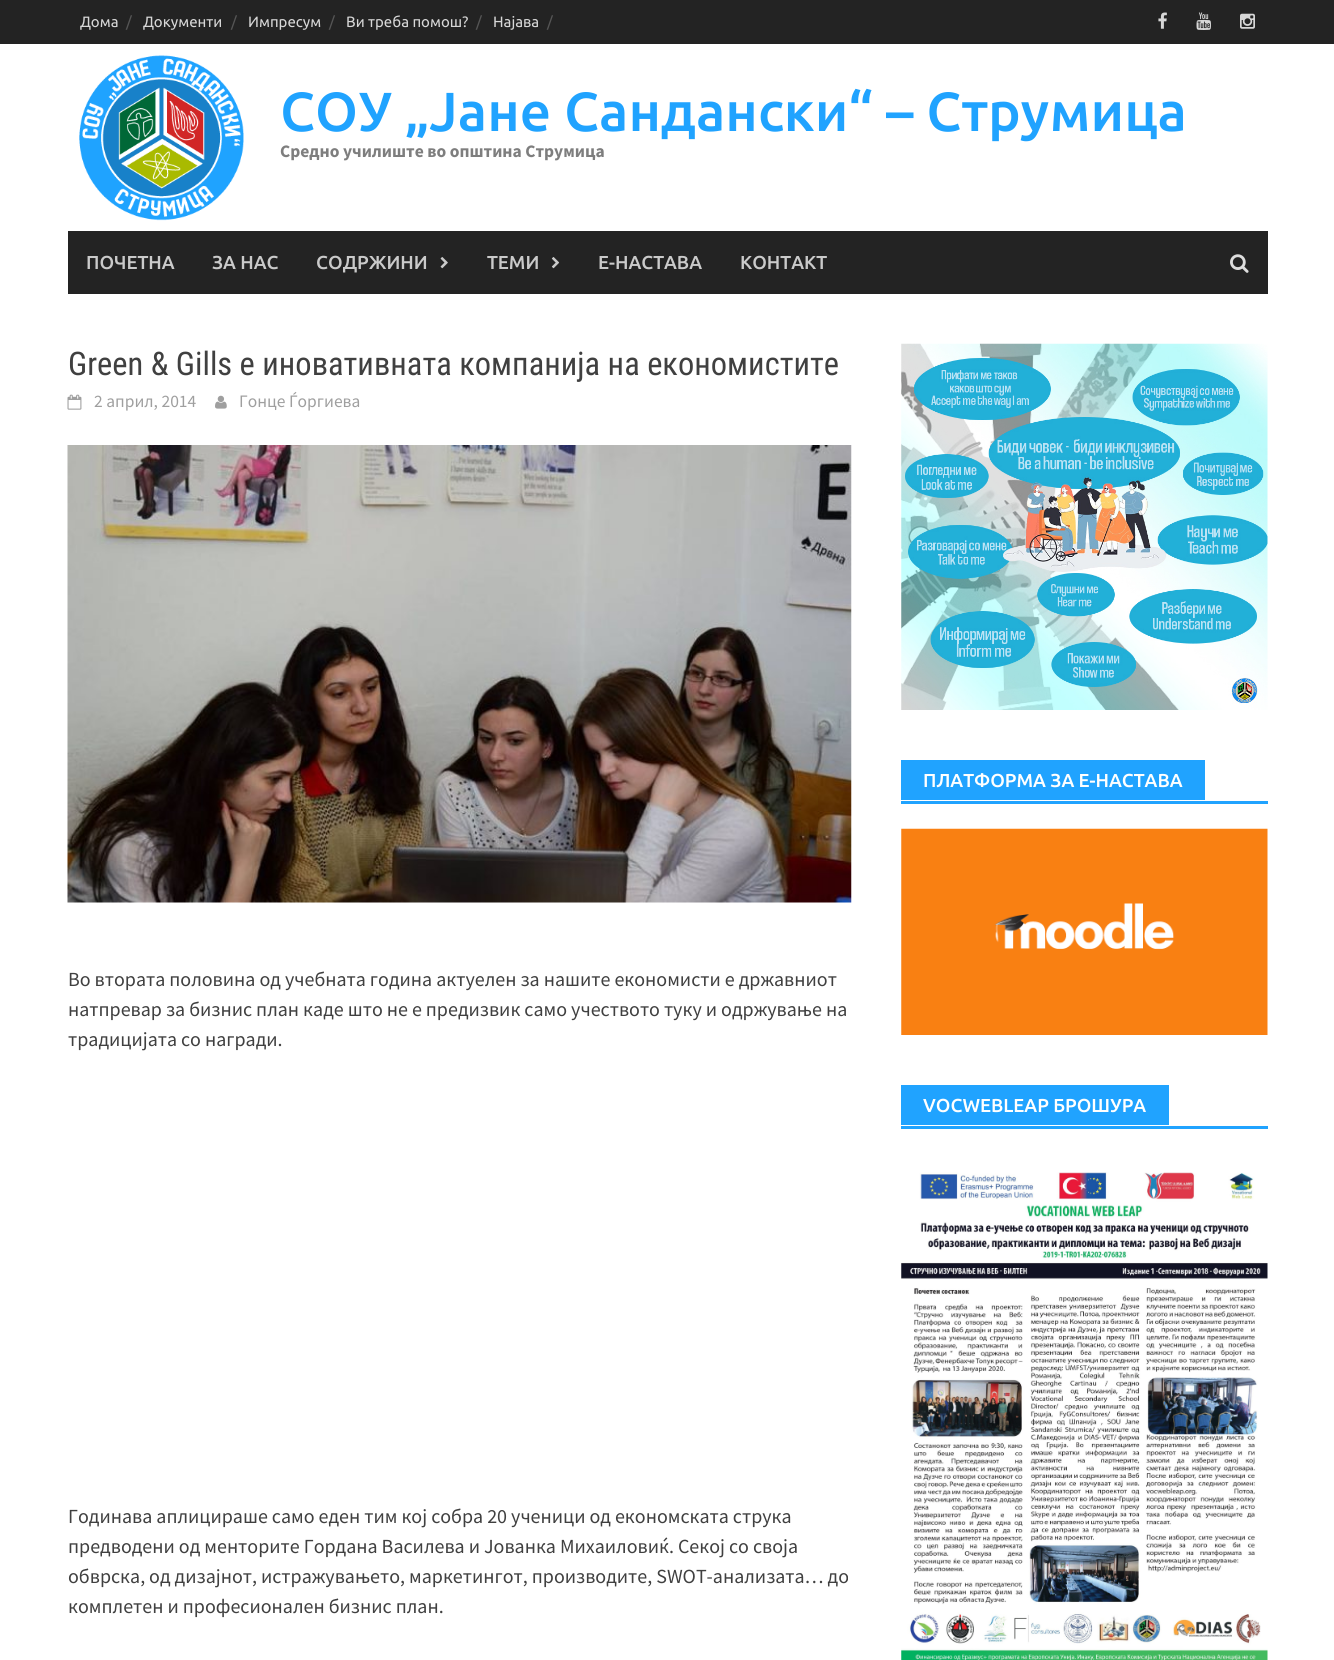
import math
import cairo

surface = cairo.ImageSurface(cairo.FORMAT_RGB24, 1334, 1660)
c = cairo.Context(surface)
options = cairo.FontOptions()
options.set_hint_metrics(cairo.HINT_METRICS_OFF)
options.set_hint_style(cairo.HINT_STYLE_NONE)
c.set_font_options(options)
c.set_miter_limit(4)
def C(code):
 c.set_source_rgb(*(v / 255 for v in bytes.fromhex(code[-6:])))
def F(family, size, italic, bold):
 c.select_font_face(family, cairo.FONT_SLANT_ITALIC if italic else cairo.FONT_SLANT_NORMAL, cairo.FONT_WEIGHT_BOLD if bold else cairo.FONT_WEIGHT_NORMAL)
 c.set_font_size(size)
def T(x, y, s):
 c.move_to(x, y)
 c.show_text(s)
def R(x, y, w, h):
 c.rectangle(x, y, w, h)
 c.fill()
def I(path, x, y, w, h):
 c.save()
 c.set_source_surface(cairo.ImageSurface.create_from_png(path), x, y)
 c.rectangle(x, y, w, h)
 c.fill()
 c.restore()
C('ffffff')
c.paint()
C('232323')
R(0,0,1334,44)
F('Ubuntu',15,0,0)
C('d7d7d7')
T(80,27,'Дома')
C('555555')
T(126,27,'/')
C('d7d7d7')
T(143,27,'Документи')
C('555555')
T(231,27,'/')
C('d7d7d7')
T(248,27,'Импресум')
C('555555')
T(329,27,'/')
C('d7d7d7')
T(346,27,'Ви треба помош?')
C('555555')
T(476,27,'/')
C('d7d7d7')
T(493,27,'Најава')
C('555555')
T(547,27,'/')
I('1.png',1158,12,9,17)
I('2.png',1196,12,15,18)
I('3.png',1240,13,15,16)
I('4.png',79,55,165,166)
F('Ubuntu Medium',55,0,0)
C('20a3ff')
T(280,131,'СОУ „Јане Сандански“ – Струмица')
F('Source Sans Pro',17.5,0,1)
C('7e7e7e')
T(280,157,'Средно училиште во општина Струмица')
C('232323')
R(68,231,1200,63)
F('Ubuntu Medium',18.75,0,0)
C('cacaca')
T(86,269,'ПОЧЕТНА')
T(212,269,'ЗА НАС')
T(316,269,'СОДРЖИНИ')
I('5.png',440,257,8,12)
T(487,269,'ТЕМИ')
I('6.png',551,257,9,12)
T(598,269,'Е-НАСТАВА')
T(740,269,'КОНТАКТ')
I('7.png',1230,254,19,19)
F('Roboto Condensed',32.5,0,0)
C('404040')
T(68,375,'Green & Gills е иновативната компанија на економистите')
I('8.png',67,394,15,16)
F('Source Sans Pro',17.5,0,0)
C('9f9f9f')
T(94,407,'2 април, 2014')
I('9.png',215,395,12,14)
T(239,407,'Гонце Ѓоргиева')
I('10.png',67,445,785,458)
F('Source Sans Pro',20,0,0)
C('404040')
T(68,986,'Во втората половина од учебната година актуелен за нашите економисти е државниот')
T(68,1016,'натпревар за бизнис план каде што не е предизвик само учеството туку и одржување на')
T(68,1046,'традицијата со награди.')
T(68,1523,'Годинава аплицираше само еден тим кој собра 20 ученици од економската струка')
T(68,1553,'предводени од менторите Гордана Василева и Јованка Михаиловиќ. Секој со своја')
T(68,1583,'обврска, од дизајнот, истражувањето, маркетингот, производите, SWOT-анализата… до')
T(68,1613,'комплетен и професионален бизнис план.')
I('11.png',901,343,367,367)
C('20a3ff')
R(901,801,367,3)
R(901,760,304,40)
F('Ubuntu Medium',18.75,0,0)
C('ffffff')
T(923,787,'ПЛАТФОРМА ЗА Е-НАСТАВА')
I('12.png',901,828,367,207)
C('20a3ff')
R(901,1126,367,3)
R(901,1085,268,40)
C('ffffff')
T(923,1112,'VOCWEBLEAP БРОШУРА')
I('13.png',901,1172,367,488)
surface.write_to_png('o.png')
